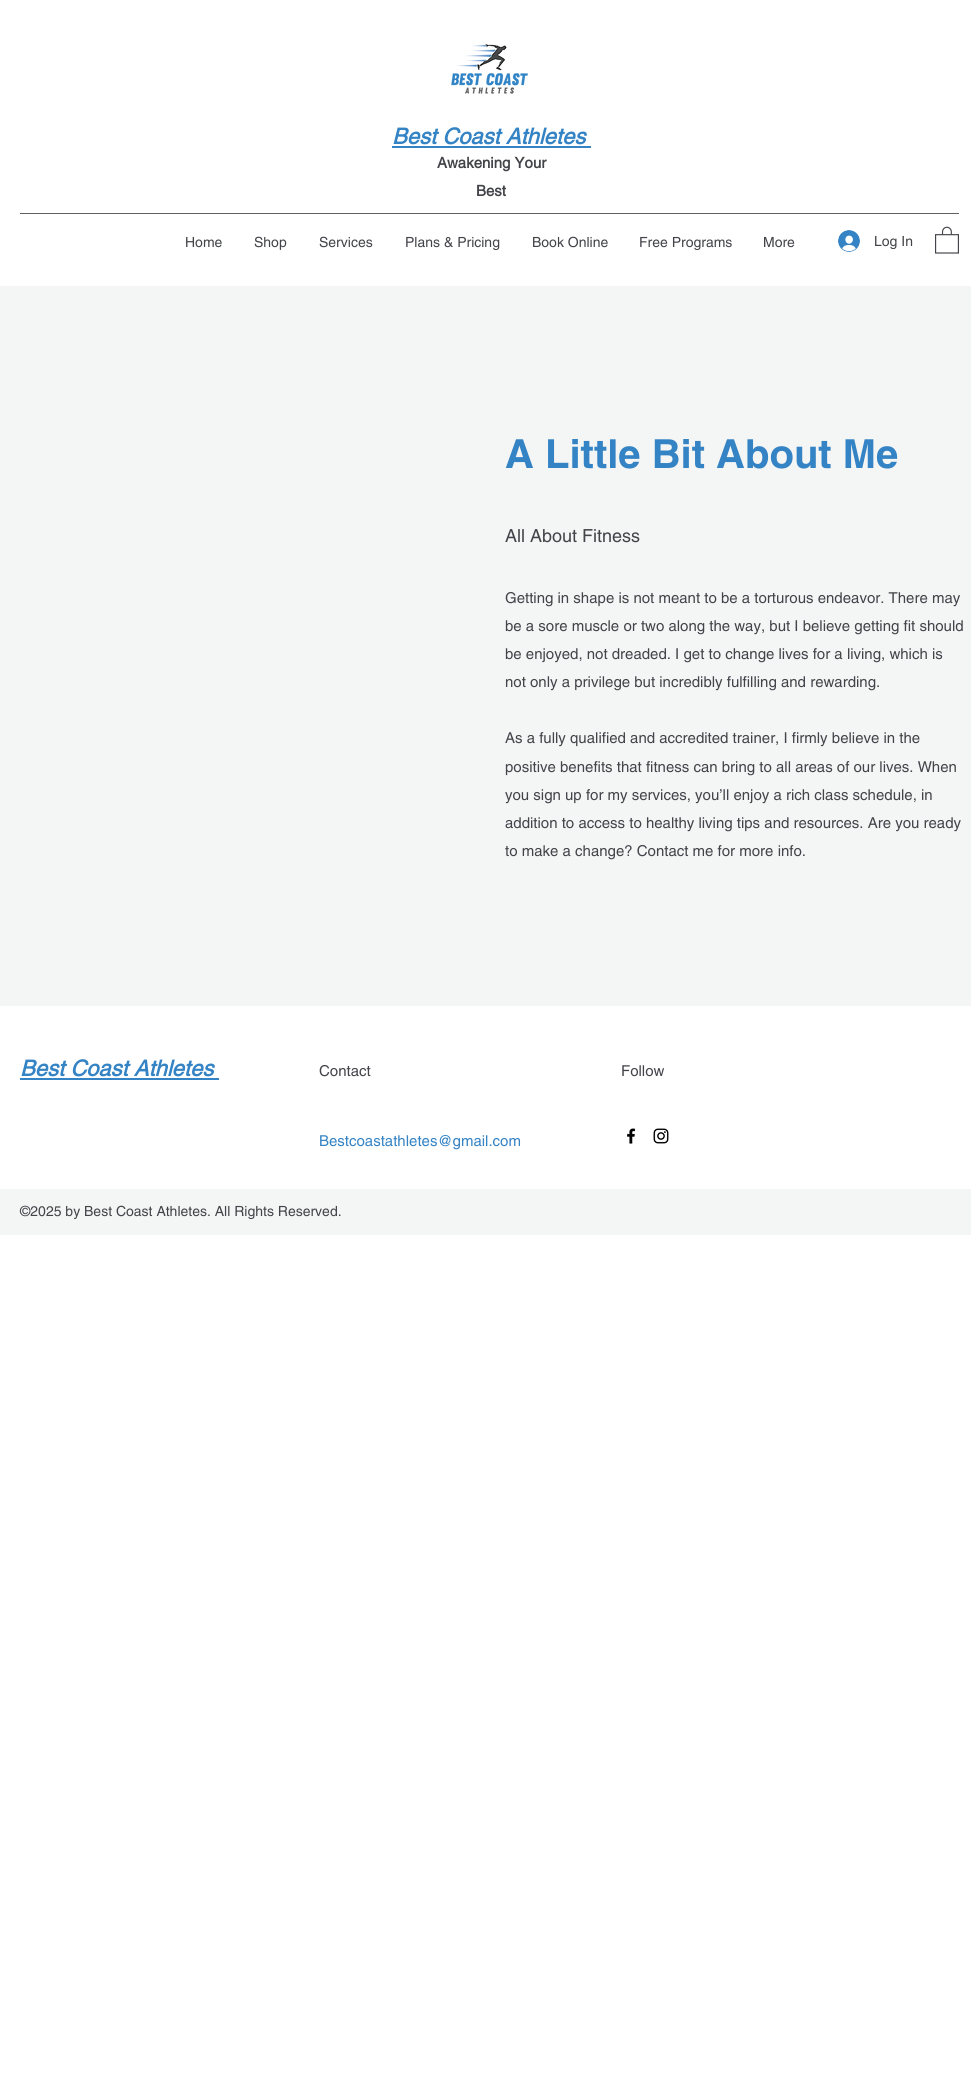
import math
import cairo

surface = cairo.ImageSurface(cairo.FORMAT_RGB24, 971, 2084)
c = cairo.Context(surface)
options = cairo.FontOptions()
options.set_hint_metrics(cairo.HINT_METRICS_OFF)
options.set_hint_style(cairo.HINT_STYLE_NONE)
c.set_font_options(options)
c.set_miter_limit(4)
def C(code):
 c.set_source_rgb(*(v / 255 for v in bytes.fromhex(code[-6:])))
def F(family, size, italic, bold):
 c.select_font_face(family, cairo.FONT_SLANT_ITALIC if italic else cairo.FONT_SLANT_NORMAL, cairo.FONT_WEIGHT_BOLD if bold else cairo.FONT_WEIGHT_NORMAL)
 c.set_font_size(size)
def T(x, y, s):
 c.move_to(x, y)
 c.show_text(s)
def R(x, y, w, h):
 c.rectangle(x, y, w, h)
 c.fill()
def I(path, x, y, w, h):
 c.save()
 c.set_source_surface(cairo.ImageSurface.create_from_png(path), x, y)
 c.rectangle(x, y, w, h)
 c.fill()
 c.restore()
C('ffffff')
c.paint()
I('1.png',451,44,77,50)
F('helvetica',22,1,1)
C('3483c4')
T(392,144,'Best Coast Athletes')
R(392,146,199,2)
F('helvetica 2',15,0,1)
C('434449')
T(437,168,'Awakening Your')
T(476,196,'Best')
C('5f6064')
R(20,213,939,1)
F('helvetica',14,0,0)
C('434449')
T(185,247,'Home')
T(254,247,'Shop')
T(319,247,'Services')
T(405,247,'Plans & Pricing')
T(532,247,'Book Online')
T(639,247,'Free Programs')
T(763,247,'More')
I('2.png',838,230,22,22)
T(874,246,'Log In')
I('3.png',935,226,24,28)
C('f4f5f5')
R(0,286,971,720)
F('helvetica',40,0,1)
C('3483c4')
T(505,468,'A Little Bit About Me')
F('helvetica',18,0,0)
C('434449')
T(505,542,'All About Fitness')
F('helvetica',15,0,0)
T(505,603,'Getting in shape is not meant to be a torturous endeavor. There may')
T(505,631,'be a sore muscle or two along the way, but I believe getting fit should')
T(505,659,'be enjoyed, not dreaded. I get to change lives for a living, which is')
T(505,687,'not only a privilege but incredibly fulfilling and rewarding.')
T(505,743,'As a fully qualified and accredited trainer, I firmly believe in the')
T(505,772,'positive benefits that fitness can bring to all areas of our lives. When')
T(505,800,'you sign up for my services, you’ll enjoy a rich class schedule, in')
T(505,828,'addition to access to healthy living tips and resources. Are you ready')
T(505,856,'to make a change? Contact me for more info.')
F('helvetica',22,1,1)
C('3483c4')
T(20,1076,'Best Coast Athletes')
R(20,1078,199,2)
F('helvetica',15,0,0)
C('434449')
T(319,1076,'Contact')
T(621,1076,'Follow')
C('3483c4')
T(319,1146,'Bestcoastathletes@gmail.com')
I('4.png',627,1128,9,16)
I('5.png',653,1128,16,16)
C('f4f5f5')
R(0,1189,971,46)
F('helvetica',14,0,0)
C('434449')
T(20,1216,'©2025 by Best Coast Athletes. All Rights Reserved.')
surface.write_to_png('o.png')
